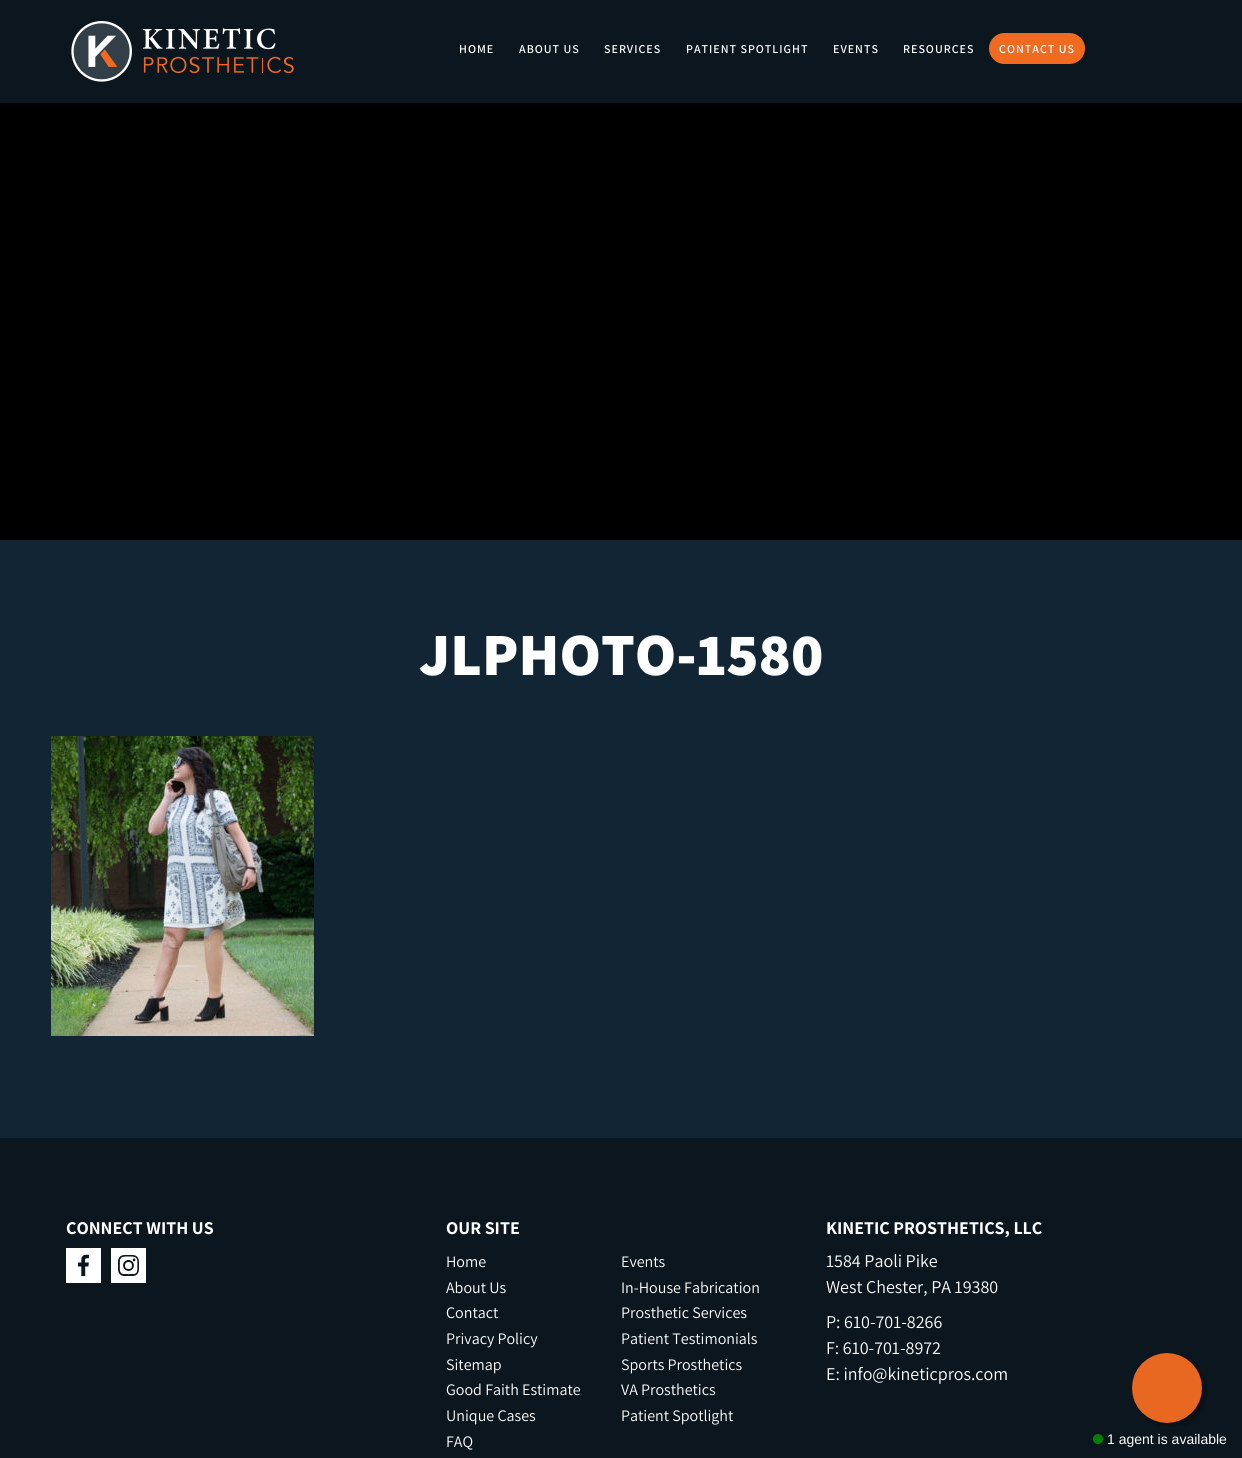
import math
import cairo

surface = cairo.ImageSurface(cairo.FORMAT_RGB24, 1242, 1458)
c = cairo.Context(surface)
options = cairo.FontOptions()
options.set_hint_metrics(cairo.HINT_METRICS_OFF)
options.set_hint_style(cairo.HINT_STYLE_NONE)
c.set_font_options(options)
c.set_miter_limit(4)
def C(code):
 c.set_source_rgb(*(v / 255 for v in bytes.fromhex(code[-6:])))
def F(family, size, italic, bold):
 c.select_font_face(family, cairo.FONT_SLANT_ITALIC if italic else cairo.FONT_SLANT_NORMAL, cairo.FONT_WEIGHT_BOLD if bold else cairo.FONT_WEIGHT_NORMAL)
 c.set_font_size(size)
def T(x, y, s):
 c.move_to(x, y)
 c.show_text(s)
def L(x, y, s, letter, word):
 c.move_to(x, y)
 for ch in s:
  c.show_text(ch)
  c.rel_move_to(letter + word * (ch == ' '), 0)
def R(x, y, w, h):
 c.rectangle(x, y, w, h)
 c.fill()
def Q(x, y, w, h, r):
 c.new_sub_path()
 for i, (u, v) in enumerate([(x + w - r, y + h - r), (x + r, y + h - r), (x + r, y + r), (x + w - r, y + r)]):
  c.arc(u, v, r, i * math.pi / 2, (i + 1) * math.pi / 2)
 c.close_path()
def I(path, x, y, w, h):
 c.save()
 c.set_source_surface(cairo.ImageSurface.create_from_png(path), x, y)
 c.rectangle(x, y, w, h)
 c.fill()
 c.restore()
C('112534')
c.paint()
C('0c161e')
R(0,0,1242,103)
I('1.png',71,21,223,61)
F('Assistant SemiBold',12,0,0)
C('ffffff')
L(459,53,'HOME',1,0)
L(519,53,'ABOUT US',1,0)
L(604,53,'SERVICES',1,0)
L(686,53,'PATIENT SPOTLIGHT',1,0)
L(833,53,'EVENTS',1,0)
L(903,53,'RESOURCES',1,0)
C('f06a20')
Q(989,33,96,31,15.5)
c.fill()
C('ffffff')
L(999,53,'CONTACT US',1,0)
C('000000')
R(0,103,1242,437)
F('Assistant ExtraBold',60,0,0)
C('ffffff')
T(419,675,'JLPHOTO-1580')
I('2.png',51,736,263,300)
C('0c161e')
R(0,1138,1242,320)
F('Assistant',18,0,1)
C('ffffff')
T(66,1234,'CONNECT WITH US')
I('3.png',66,1248,35,35)
I('4.png',111,1248,35,35)
T(446,1234,'OUR SITE')
F('Assistant',16,0,0)
T(446,1267,'Home')
T(621,1267,'Events')
T(446,1293,'About Us')
T(621,1293,'In-House Fabrication')
T(446,1318,'Contact')
T(621,1318,'Prosthetic Services')
T(446,1344,'Privacy Policy')
T(621,1344,'Patient Testimonials')
T(446,1370,'Sitemap')
T(621,1370,'Sports Prosthetics')
T(446,1395,'Good Faith Estimate')
T(621,1395,'VA Prosthetics')
T(446,1421,'Unique Cases')
T(621,1421,'Patient Spotlight')
T(446,1447,'FAQ')
F('Assistant',18,0,1)
T(826,1234,'KINETIC PROSTHETICS, LLC')
F('Assistant',18,0,0)
T(826,1267,'1584 Paoli Pike')
T(826,1293,'West Chester, PA 19380')
T(826,1328,'P: 610-701-8266')
T(826,1354,'F: 610-701-8972')
T(826,1380,'E: info@kineticpros.com')
I('5.png',1132,1353,74,74)
C('008000')
c.arc(1098,1439,5,0,2 * math.pi)
c.fill()
F('Liberation Sans',14,0,0)
C('ffffff')
T(1107,1444,'1 agent is available')
surface.write_to_png('o.png')
